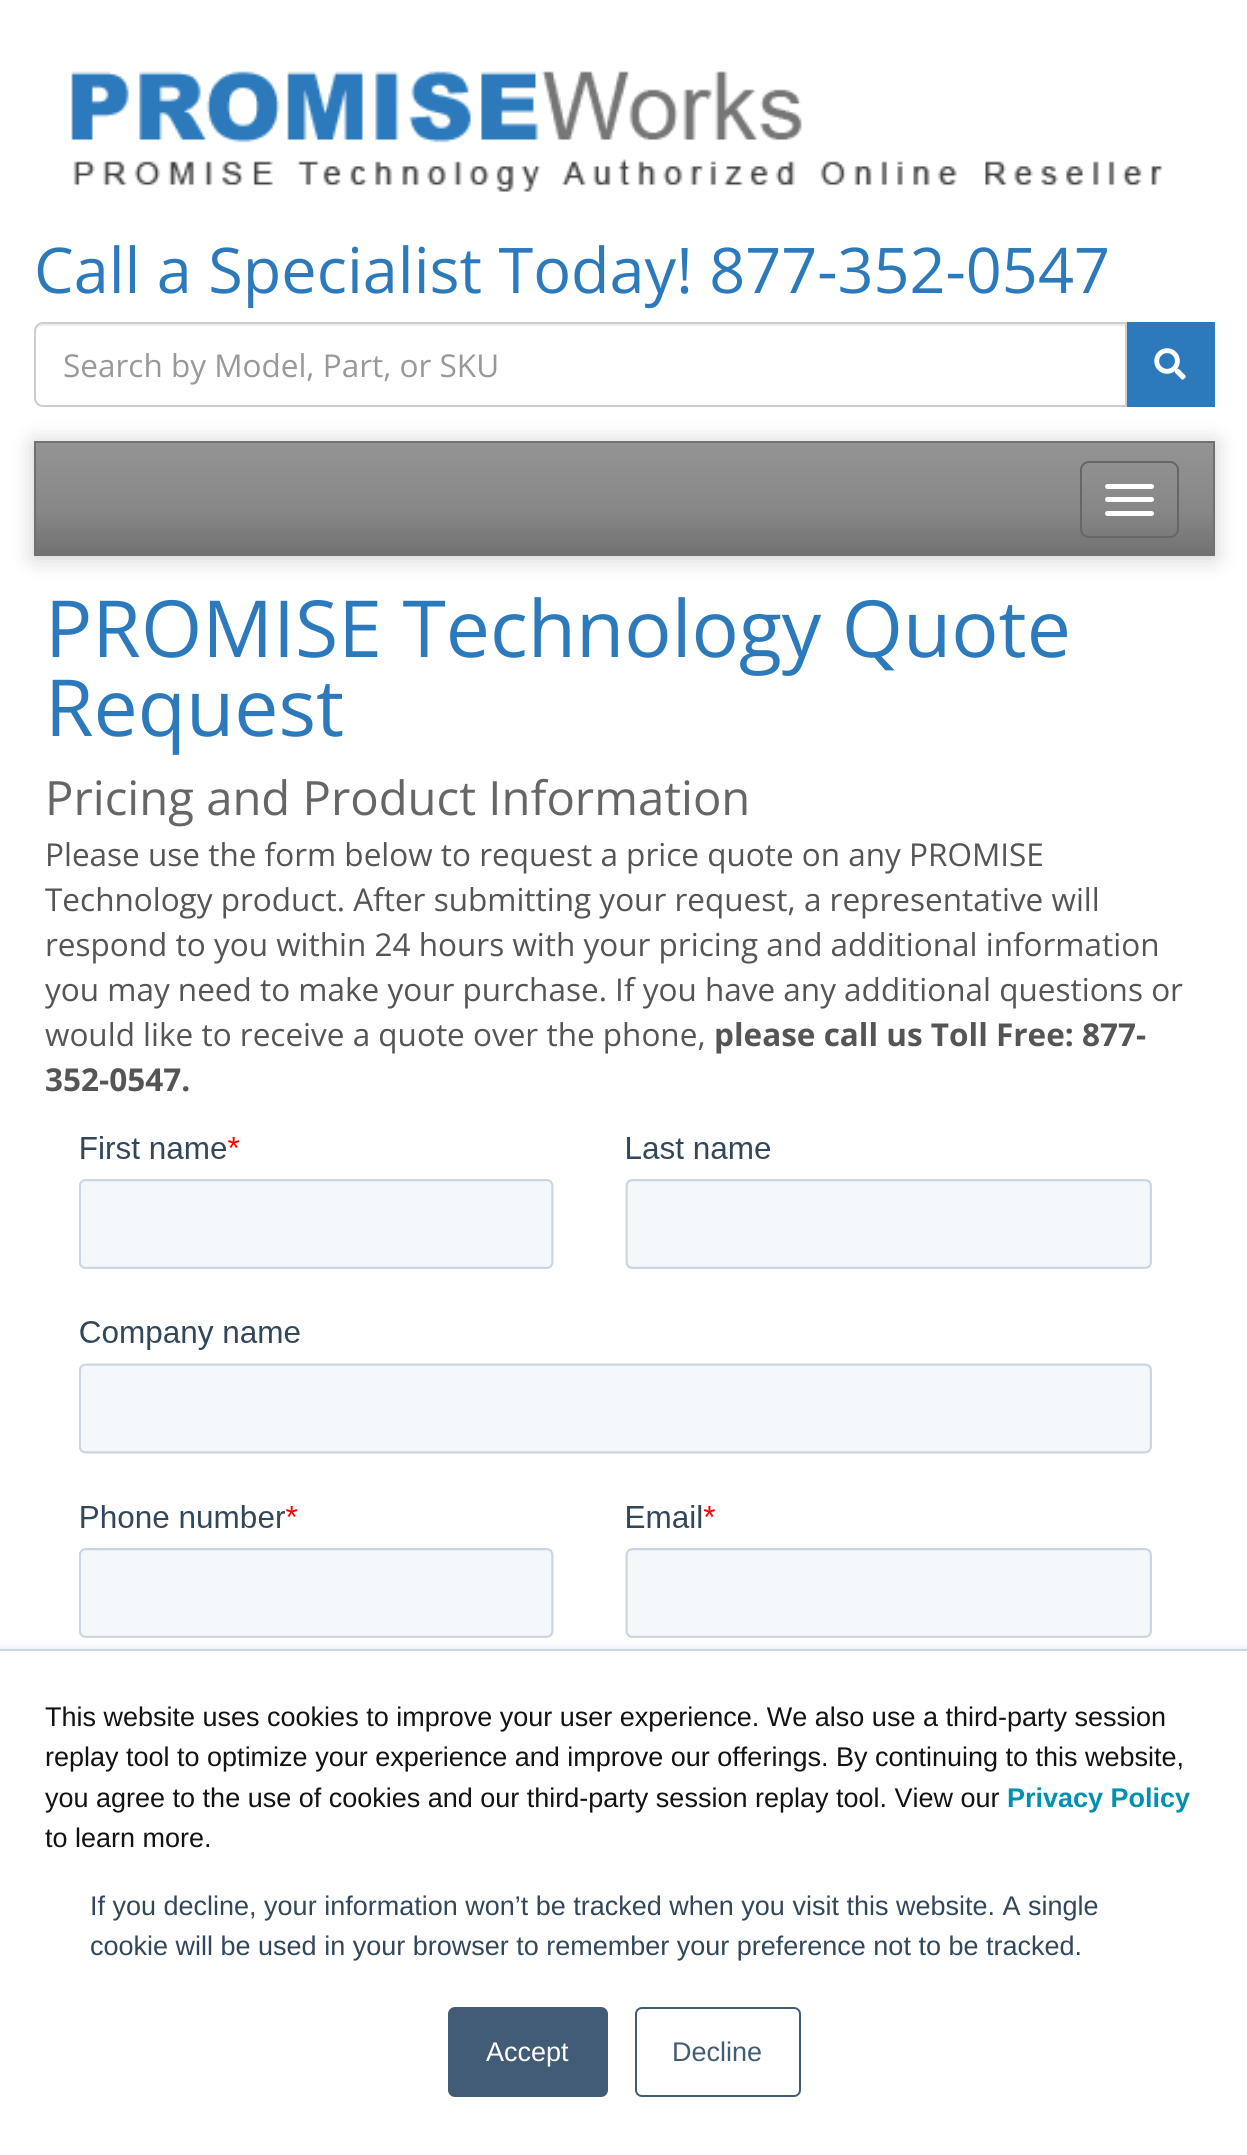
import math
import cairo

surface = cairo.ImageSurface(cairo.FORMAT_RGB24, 1247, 2155)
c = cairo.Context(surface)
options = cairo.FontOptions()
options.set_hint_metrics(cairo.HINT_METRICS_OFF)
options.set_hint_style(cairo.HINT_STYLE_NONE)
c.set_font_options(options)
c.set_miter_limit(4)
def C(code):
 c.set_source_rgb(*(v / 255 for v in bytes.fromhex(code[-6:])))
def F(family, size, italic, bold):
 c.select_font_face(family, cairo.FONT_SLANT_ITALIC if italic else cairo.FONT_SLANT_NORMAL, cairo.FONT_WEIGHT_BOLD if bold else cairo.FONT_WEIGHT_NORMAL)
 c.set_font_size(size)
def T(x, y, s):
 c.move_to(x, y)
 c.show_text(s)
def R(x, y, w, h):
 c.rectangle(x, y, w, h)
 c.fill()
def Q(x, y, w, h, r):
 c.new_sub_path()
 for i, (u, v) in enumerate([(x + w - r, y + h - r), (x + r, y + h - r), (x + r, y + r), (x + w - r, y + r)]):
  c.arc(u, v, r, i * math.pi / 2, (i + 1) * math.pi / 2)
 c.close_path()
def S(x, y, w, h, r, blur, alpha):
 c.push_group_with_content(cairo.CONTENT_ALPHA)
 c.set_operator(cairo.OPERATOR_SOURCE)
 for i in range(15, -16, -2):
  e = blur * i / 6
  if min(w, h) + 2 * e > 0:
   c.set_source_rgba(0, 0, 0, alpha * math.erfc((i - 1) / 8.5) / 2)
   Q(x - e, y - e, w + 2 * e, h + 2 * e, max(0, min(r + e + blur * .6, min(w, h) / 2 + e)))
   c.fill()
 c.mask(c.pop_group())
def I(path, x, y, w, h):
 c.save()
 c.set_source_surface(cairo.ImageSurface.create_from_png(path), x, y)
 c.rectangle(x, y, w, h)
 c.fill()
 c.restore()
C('ffffff')
c.paint()
I('1.png',71,71,1092,121)
F('Open Sans',63,0,0)
C('2c7abc')
T(34,293,'Call a Specialist Today! 877-352-0547')
C('ececec')
c.new_path()
c.move_to(43,326)
c.line_to(1125,326)
c.line_to(1125,324)
c.line_to(43,324)
c.curve_to(38,324,36,329,36,333)
c.curve_to(36,329,39,326,43,326)
c.close_path()
c.fill()
c.new_path()
c.move_to(43,323)
c.line_to(1126,323)
c.line_to(1126,406)
c.line_to(43,406)
c.curve_to(38.5,406,35,402.5,35,398)
c.line_to(35,331)
c.curve_to(35,326.5,38.5,323,43,323)
c.close_path()
C('cccccc')
c.stroke()
F('Open Sans',31.5,0,0)
C('999999')
T(63,377,'Search by Model, Part, or SKU')
C('2c7abc')
R(1127,322,88,85)
I('2.png',1154,348,32,32)
C('000000')
S(34,443,1181,115,0,11,.2)
gradient = cairo.LinearGradient(624,443,624,556)
gradient.add_color_stop_rgba(0,0.58,0.58,0.58,1)
gradient.add_color_stop_rgba(.6,0.529,0.529,0.529,1)
gradient.add_color_stop_rgba(1,0.443,0.443,0.443,1)
c.set_source(gradient)
R(36,443,1177,113)
C('717171')
R(34,441,1181,2)
R(1213,441,2,115)
R(34,441,2,115)
Q(1081,462,97,75,8)
C('666666')
c.stroke()
C('ffffff')
Q(1105,484,49,5,2.5)
c.fill()
Q(1105,497,49,5,2.5)
c.fill()
Q(1105,511,49,5,2.5)
c.fill()
F('Open Sans',78.75,0,0)
C('2c7abc')
T(45,657,'PROMISE Technology Quote')
T(45,736,'Request')
F('Open Sans',47.25,0,0)
C('666666')
T(45,815,'Pricing and Product Information')
F('Open Sans',31.5,0,0)
C('555555')
T(45,866,'Please use the form below to request a price quote on any PROMISE')
T(45,911,'Technology product. After submitting your request, a representative will')
T(45,956,'respond to you within 24 hours with your pricing and additional information')
T(45,1001,'you may need to make your purchase. If you have any additional questions or')
T(45,1046,'would like to receive a quote over the phone,')
F('Open Sans',31.5,0,1)
T(714,1046,'please call us Toll Free: 877-')
T(45,1091,'352-0547.')
I('3.png',79,1136,1073,502)
C('eaf0f6')
S(0,1647,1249,506,0,3.5,1)
C('ffffff')
R(0,1651,1247,504)
C('cbd6e2')
R(0,1649,1247,2)
F('Liberation Sans',27,0,0)
C('121212')
T(45,1726,'This website uses cookies to improve your user experience. We also use a third-party session')
T(45,1766,'replay tool to optimize your experience and improve our offerings. By continuing to this website,')
T(45,1807,'you agree to the use of cookies and our third-party session replay tool. View our')
F('Liberation Sans',27,0,1)
C('0091ae')
T(1007,1807,'Privacy Policy')
F('Liberation Sans',27,0,0)
C('121212')
T(45,1847,'to learn more.')
C('33475b')
T(90,1915,'If you decline, your information won’t be tracked when you visit this website. A single')
T(90,1955,'cookie will be used in your browser to remember your preference not to be tracked.')
C('425b76')
Q(449,2008,158,88,6)
c.fill_preserve()
c.stroke()
C('ffffff')
T(486,2061,'Accept')
Q(636,2008,164,88,6)
C('425b76')
c.stroke()
T(672,2061,'Decline')
surface.write_to_png('o.png')
